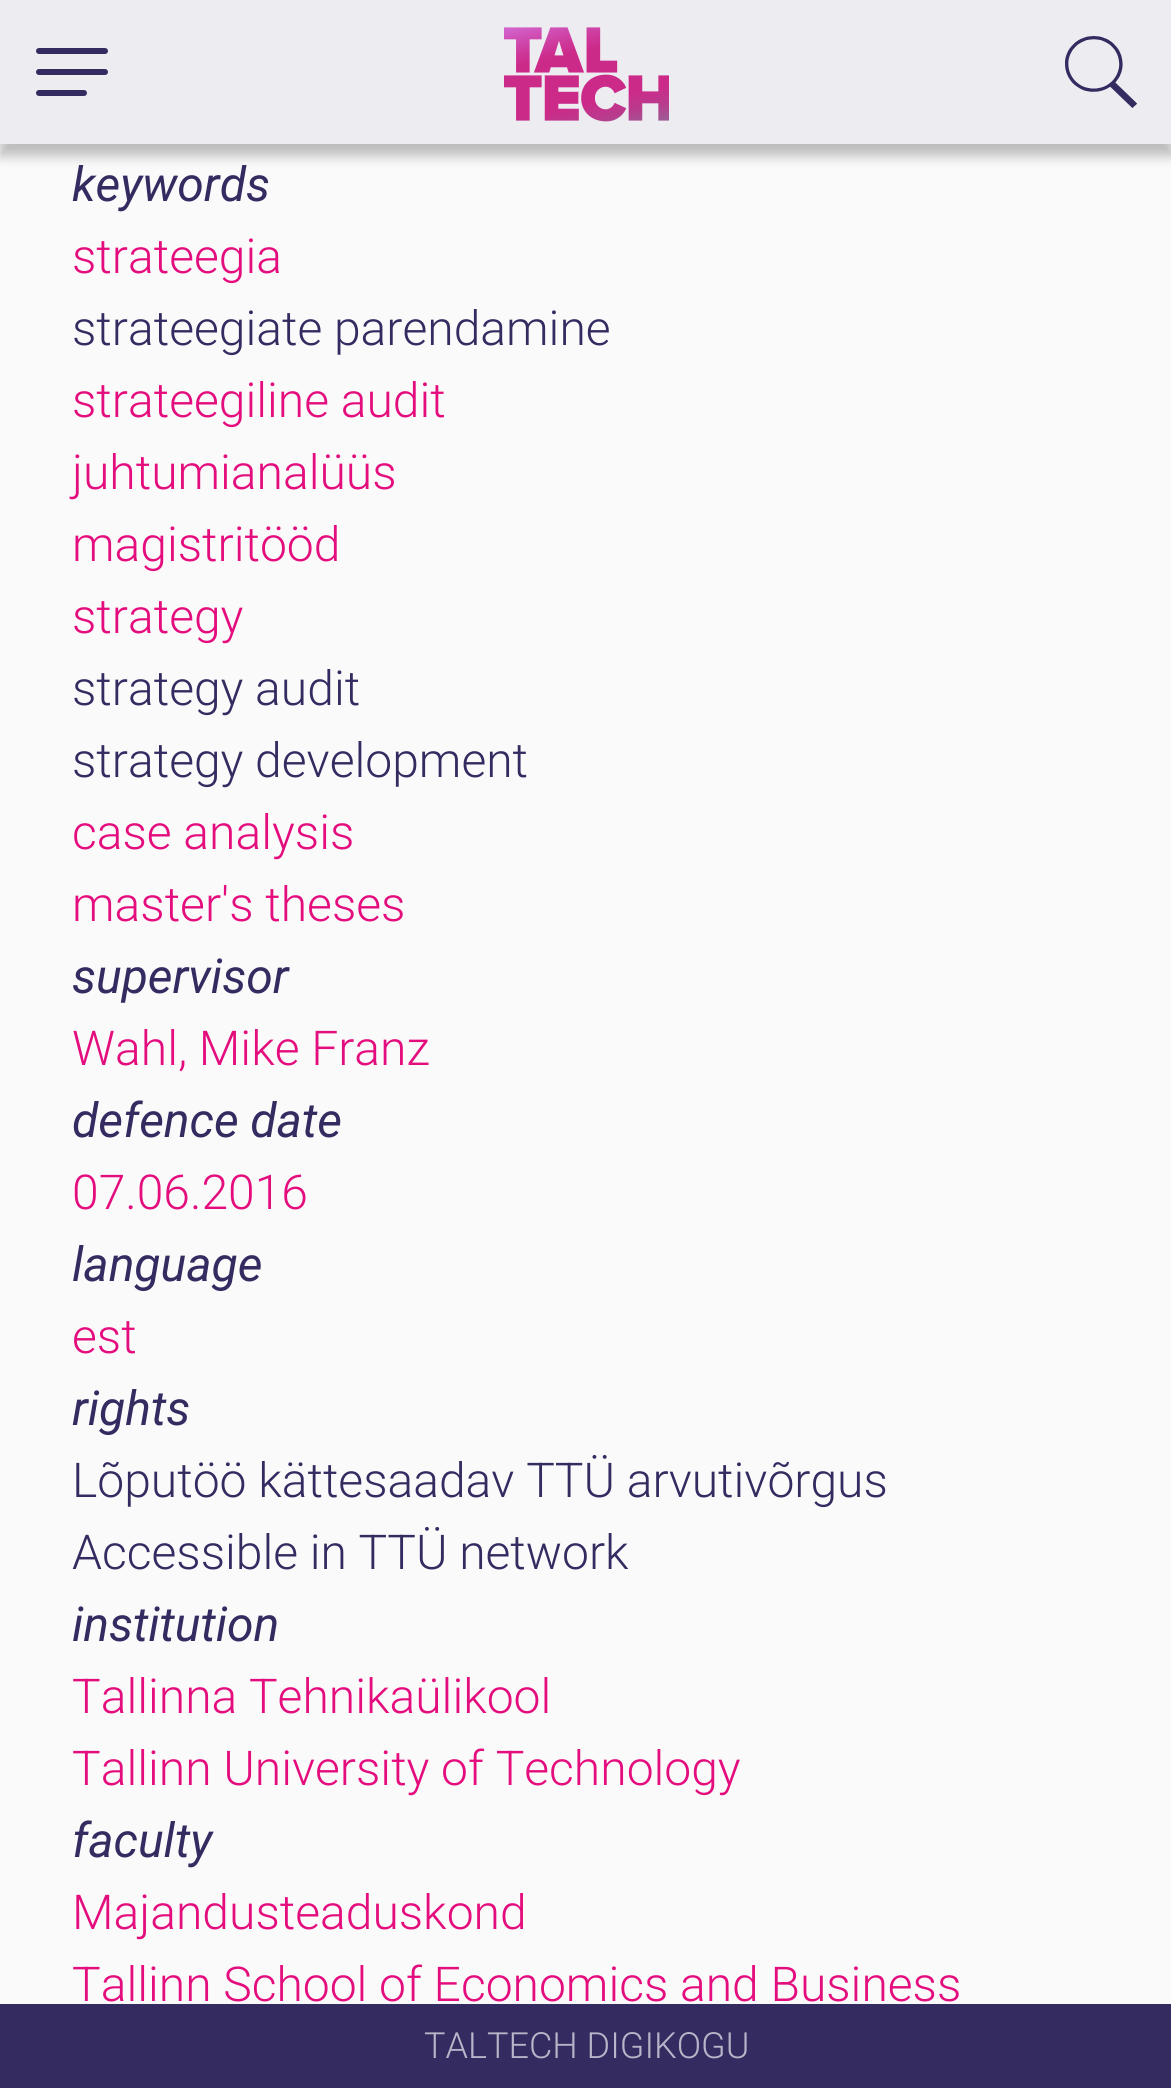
import math
import cairo

surface = cairo.ImageSurface(cairo.FORMAT_RGB24, 1171, 2088)
c = cairo.Context(surface)
options = cairo.FontOptions()
options.set_hint_metrics(cairo.HINT_METRICS_OFF)
options.set_hint_style(cairo.HINT_STYLE_NONE)
c.set_font_options(options)
c.set_miter_limit(4)
def C(code):
 c.set_source_rgb(*(v / 255 for v in bytes.fromhex(code[-6:])))
def F(family, size, italic, bold):
 c.select_font_face(family, cairo.FONT_SLANT_ITALIC if italic else cairo.FONT_SLANT_NORMAL, cairo.FONT_WEIGHT_BOLD if bold else cairo.FONT_WEIGHT_NORMAL)
 c.set_font_size(size)
def T(x, y, s):
 c.move_to(x, y)
 c.show_text(s)
def R(x, y, w, h):
 c.rectangle(x, y, w, h)
 c.fill()
def Q(x, y, w, h, r):
 c.new_sub_path()
 for i, (u, v) in enumerate([(x + w - r, y + h - r), (x + r, y + h - r), (x + r, y + r), (x + w - r, y + r)]):
  c.arc(u, v, r, i * math.pi / 2, (i + 1) * math.pi / 2)
 c.close_path()
def S(x, y, w, h, r, blur, alpha):
 c.push_group_with_content(cairo.CONTENT_ALPHA)
 c.set_operator(cairo.OPERATOR_SOURCE)
 for i in range(15, -16, -2):
  e = blur * i / 6
  if min(w, h) + 2 * e > 0:
   c.set_source_rgba(0, 0, 0, alpha * math.erfc((i - 1) / 8.5) / 2)
   Q(x - e, y - e, w + 2 * e, h + 2 * e, max(0, min(r + e + blur * .6, min(w, h) / 2 + e)))
   c.fill()
 c.mask(c.pop_group())
def I(path, x, y, w, h):
 c.save()
 c.set_source_surface(cairo.ImageSurface.create_from_png(path), x, y)
 c.rectangle(x, y, w, h)
 c.fill()
 c.restore()
C('fbfafb')
c.paint()
C('000000')
S(0,12,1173,144,0,6,.25)
C('ececf1')
R(0,0,1171,144)
C('342c61')
Q(36,69,72,6,3)
c.fill()
Q(36,48,72,6,3)
c.fill()
Q(36,90,51,6,3)
c.fill()
I('1.png',504,27,165,95)
I('2.png',1065,36,72,72)
F('Roboto',48,1,0)
T(72,201,'keywords')
F('Roboto Light',48,0,0)
C('e40d7e')
T(72,273,'strateegia')
C('342c61')
T(72,345,'strateegiate parendamine')
C('e40d7e')
T(72,417,'strateegiline audit')
T(72,489,'juhtumianalüüs')
T(72,561,'magistritööd')
T(72,633,'strategy')
C('342c61')
T(72,705,'strategy audit')
T(72,777,'strategy development')
C('e40d7e')
T(72,849,'case analysis')
T(72,921,'master\'s theses')
F('Roboto',48,1,0)
C('342c61')
T(72,993,'supervisor')
F('Roboto Light',48,0,0)
C('e40d7e')
T(72,1065,'Wahl, Mike Franz')
F('Roboto',48,1,0)
C('342c61')
T(72,1137,'defence date')
F('Roboto Light',48,0,0)
C('e40d7e')
T(72,1209,'07.06.2016')
F('Roboto',48,1,0)
C('342c61')
T(72,1281,'language')
F('Roboto Light',48,0,0)
C('e40d7e')
T(72,1353,'est')
F('Roboto',48,1,0)
C('342c61')
T(72,1425,'rights')
F('Roboto Light',48,0,0)
T(72,1497,'Lõputöö kättesaadav TTÜ arvutivõrgus')
T(72,1569,'Accessible in TTÜ network')
F('Roboto',48,1,0)
T(72,1641,'institution')
F('Roboto Light',48,0,0)
C('e40d7e')
T(72,1713,'Tallinna Tehnikaülikool')
T(72,1785,'Tallinn University of Technology')
F('Roboto',48,1,0)
C('342c61')
T(72,1857,'faculty')
F('Roboto Light',48,0,0)
C('e40d7e')
T(72,1929,'Majandusteaduskond')
T(72,2001,'Tallinn School of Economics and Business')
C('342c61')
R(0,2004,1171,84)
F('Roboto Light',36,0,0)
C('b8b5c8')
T(424,2058,'TALTECH DIGIKOGU')
surface.write_to_png('o.png')
